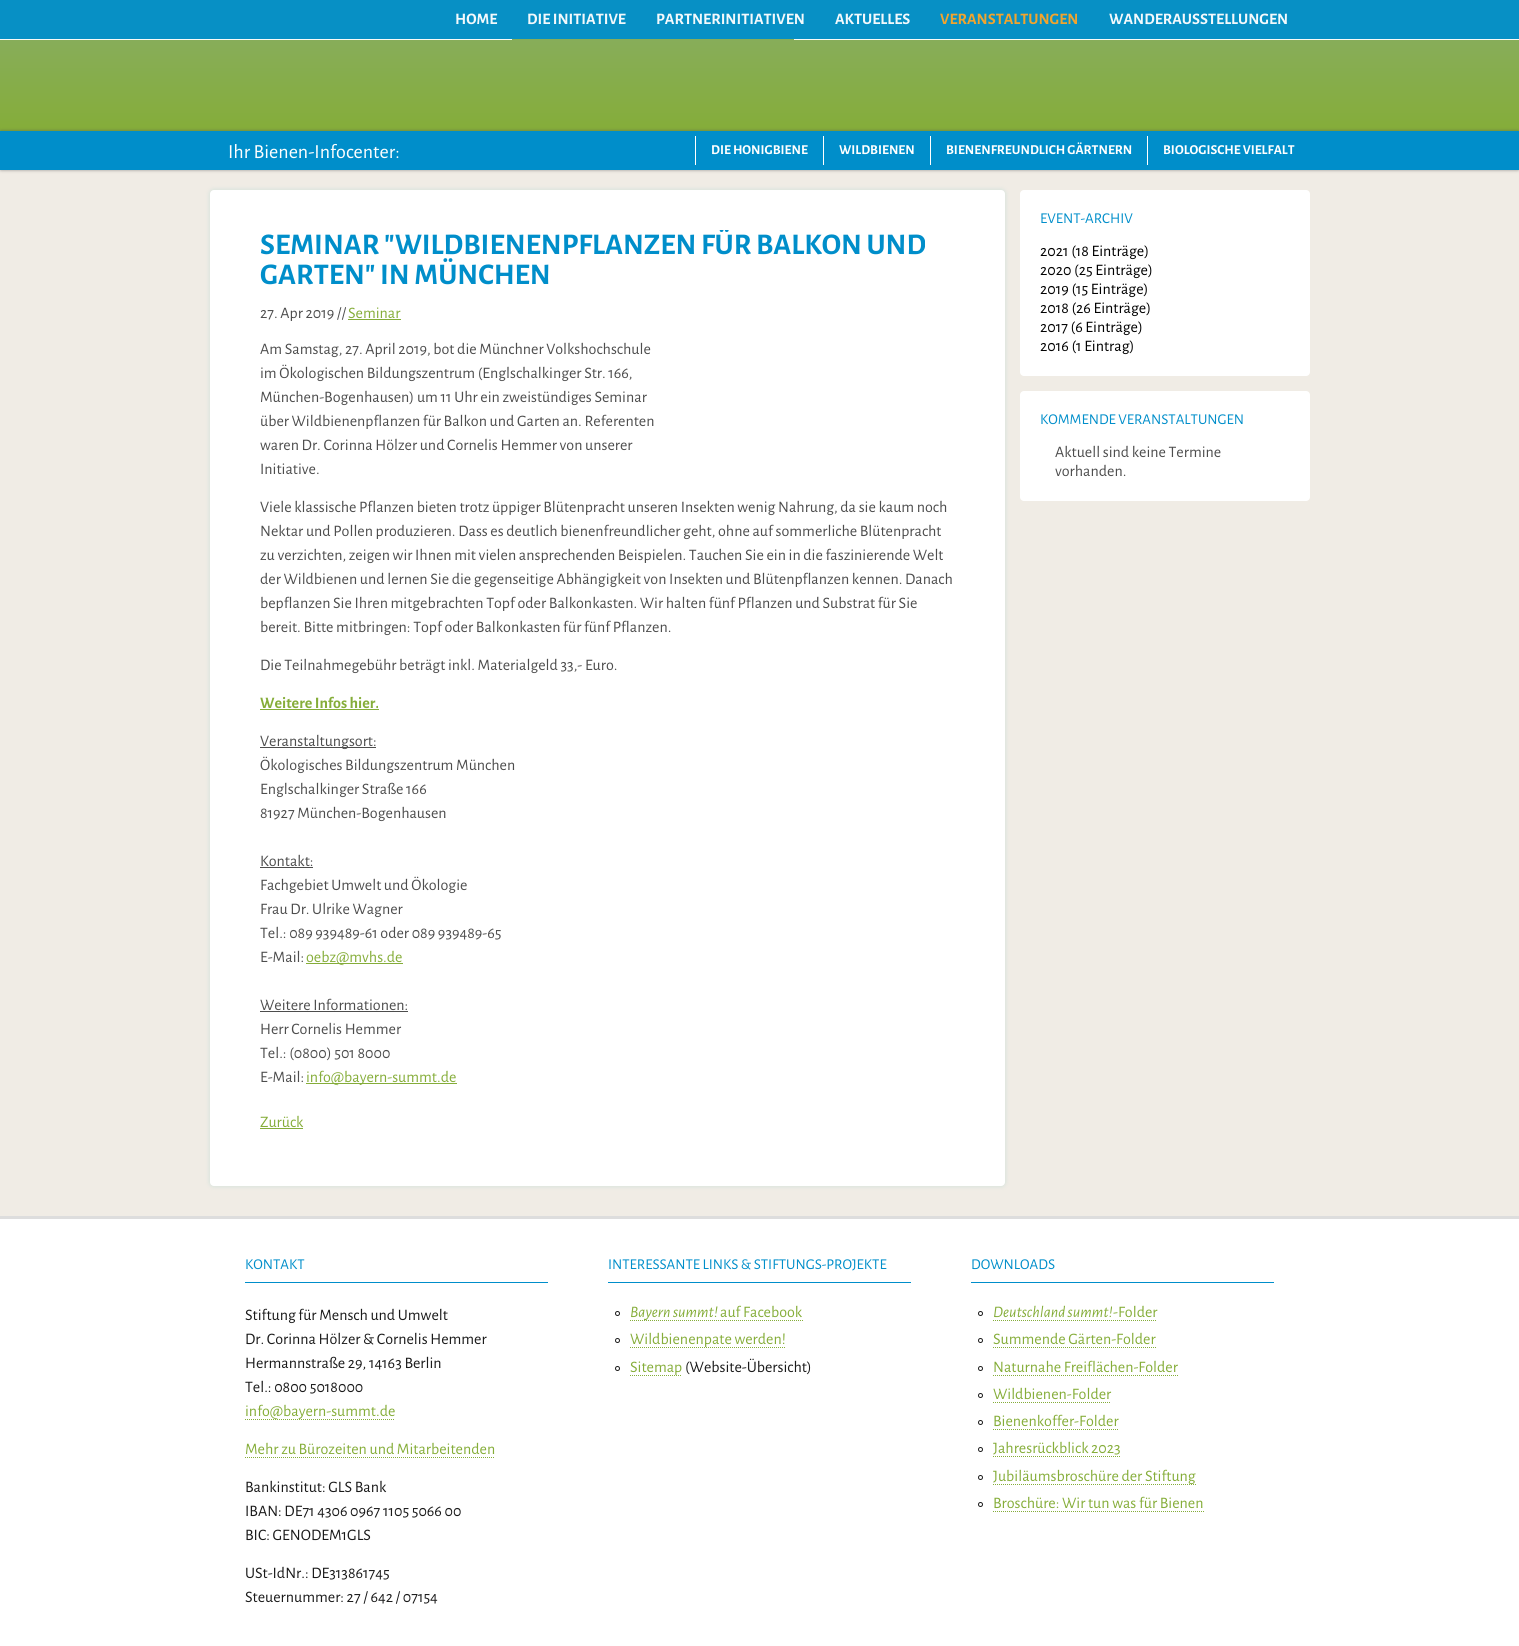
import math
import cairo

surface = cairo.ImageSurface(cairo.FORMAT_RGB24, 1519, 1646)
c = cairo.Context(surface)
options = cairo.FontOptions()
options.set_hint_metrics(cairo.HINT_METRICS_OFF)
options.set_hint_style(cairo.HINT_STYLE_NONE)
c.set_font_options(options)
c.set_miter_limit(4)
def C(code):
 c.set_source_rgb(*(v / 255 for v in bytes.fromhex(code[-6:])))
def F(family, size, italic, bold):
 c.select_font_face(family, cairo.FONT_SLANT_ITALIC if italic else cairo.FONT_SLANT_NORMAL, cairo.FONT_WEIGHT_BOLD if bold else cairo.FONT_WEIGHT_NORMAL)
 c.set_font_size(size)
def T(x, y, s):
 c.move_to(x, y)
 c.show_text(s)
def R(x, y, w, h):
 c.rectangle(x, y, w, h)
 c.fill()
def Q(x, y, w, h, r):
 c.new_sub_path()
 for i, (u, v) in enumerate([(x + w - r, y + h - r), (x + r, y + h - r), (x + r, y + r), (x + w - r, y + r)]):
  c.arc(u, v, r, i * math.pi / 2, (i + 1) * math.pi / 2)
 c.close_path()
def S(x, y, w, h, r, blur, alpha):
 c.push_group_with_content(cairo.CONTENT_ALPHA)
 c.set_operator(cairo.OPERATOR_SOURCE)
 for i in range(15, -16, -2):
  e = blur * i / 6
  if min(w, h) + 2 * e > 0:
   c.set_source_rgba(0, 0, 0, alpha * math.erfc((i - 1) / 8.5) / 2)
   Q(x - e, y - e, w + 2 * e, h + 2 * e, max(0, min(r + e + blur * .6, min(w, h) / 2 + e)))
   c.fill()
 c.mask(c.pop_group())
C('f0ece5')
c.paint()
gradient = cairo.LinearGradient(760,131,760,-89)
gradient.add_color_stop_rgba(0,0.522,0.678,0.224,1)
gradient.add_color_stop_rgba(1,0.541,0.678,0.529,1)
c.set_source(gradient)
R(0,40,1519,91)
gradient = cairo.LinearGradient(760,131,760,-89)
gradient.add_color_stop_rgba(0,0.027,0.565,0.765,1)
gradient.add_color_stop_rgba(1,0.027,0.565,0.78,1)
c.set_source(gradient)
R(0,0,1519,39)
C('f9fbf7')
R(0,39,1519,1)
F('Alegreya Sans',16,0,1)
C('f3f9fc')
T(455,24,'HOME')
T(527,24,'DIE INITIATIVE')
C('87ad59')
R(512,39,282,1)
C('f3f9fc')
T(656,24,'PARTNERINITIATIVEN')
T(835,24,'AKTUELLES')
C('f2a42d')
T(940,24,'VERANSTALTUNGEN')
C('f3f9fc')
T(1109,24,'WANDERAUSSTELLUNGEN')
C('008eca')
R(0,131,1519,39)
c.save()
c.set_fill_rule(cairo.FILL_RULE_EVEN_ODD)
c.new_path()
c.move_to(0,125)
c.line_to(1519,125)
c.line_to(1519,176)
c.line_to(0,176)
c.close_path()
c.move_to(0,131)
c.line_to(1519,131)
c.line_to(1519,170)
c.line_to(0,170)
c.close_path()
c.clip()
C('4d4d4d')
S(1,132,1517,37,0,2,1)
c.restore()
F('Alegreya Sans',20,0,0)
C('ffffff')
T(228,158,'Ihr Bienen-Infocenter:')
R(695,136,1,29)
F('Alegreya Sans',13.6,0,1)
T(711,154,'DIE HONIGBIENE')
R(823,136,1,29)
T(839,154,'WILDBIENEN')
R(930,136,1,29)
T(946,154,'BIENENFREUNDLICH GÄRTNERN')
R(1147,136,1,29)
T(1163,154,'BIOLOGISCHE VIELFALT')
C('d8e3dd')
S(209,189,797,998,5,2,1)
C('ffffff')
Q(210,190,795,996,4)
c.fill()
c.save()
c.rectangle(260,230,695,883)
c.clip()
F('Alegreya Sans',30,0,1)
C('008eca')
T(260,254,'SEMINAR "WILDBIENENPFLANZEN FÜR BALKON UND')
c.restore()
F('Alegreya Sans',30,0,1)
C('008eca')
T(260,284,'GARTEN" IN MÜNCHEN')
F('Alegreya Sans',16,0,0)
C('4d4d4d')
T(260,318,'27. Apr 2019 //')
C('85ad39')
T(348,318,'Seminar')
R(348,319,53,1)
C('4d4d4d')
T(260,354,'Am Samstag, 27. April 2019, bot die Münchner Volkshochschule')
T(260,378,'im Ökologischen Bildungszentrum (Englschalkinger Str. 166,')
T(260,402,'München-Bogenhausen) um 11 Uhr ein zweistündiges Seminar')
T(260,426,'über Wildbienenpflanzen für Balkon und Garten an. Referenten')
T(260,450,'waren Dr. Corinna Hölzer und Cornelis Hemmer von unserer')
T(260,474,'Initiative.')
T(260,512,'Viele klassische Pflanzen bieten trotz üppiger Blütenpracht unseren Insekten wenig Nahrung, da sie kaum noch')
T(260,536,'Nektar und Pollen produzieren. Dass es deutlich bienenfreundlicher geht, ohne auf sommerliche Blütenpracht')
T(260,560,'zu verzichten, zeigen wir Ihnen mit vielen ansprechenden Beispielen. Tauchen Sie ein in die faszinierende Welt')
T(260,584,'der Wildbienen und lernen Sie die gegenseitige Abhängigkeit von Insekten und Blütenpflanzen kennen. Danach')
T(260,608,'bepflanzen Sie Ihren mitgebrachten Topf oder Balkonkasten. Wir halten fünf Pflanzen und Substrat für Sie')
T(260,632,'bereit. Bitte mitbringen: Topf oder Balkonkasten für fünf Pflanzen.')
T(260,670,'Die Teilnahmegebühr beträgt inkl. Materialgeld 33,- Euro.')
F('Alegreya Sans',16,0,1)
C('85ad39')
T(260,708,'Weitere Infos hier.')
R(260,709,119,1)
C('4d4d4d')
R(260,747,116,1)
F('Alegreya Sans',16,0,0)
T(260,746,'Veranstaltungsort:')
T(260,770,'Ökologisches Bildungszentrum München')
T(260,794,'Englschalkinger Straße 166')
T(260,818,'81927 München-Bogenhausen')
T(260,866,'Kontakt:')
R(260,867,53,1)
T(260,890,'Fachgebiet Umwelt und Ökologie')
T(260,914,'Frau Dr. Ulrike Wagner')
T(260,938,'Tel.: 089 939489-61 oder 089 939489-65')
T(260,962,'E-Mail:')
C('85ad39')
R(306,963,97,1)
T(306,962,'oebz@mvhs.de')
C('4d4d4d')
T(260,1010,'Weitere Informationen:')
R(260,1011,148,1)
T(260,1034,'Herr Cornelis Hemmer')
T(260,1058,'Tel.: (0800) 501 8000')
T(260,1082,'E-Mail:')
C('85ad39')
R(306,1083,151,1)
T(306,1082,'info@bayern-summt.de')
T(260,1127,'Zurück')
R(260,1128,43,1)
C('ffffff')
Q(1020,190,290,186,4)
c.fill()
F('Alegreya Sans',15,0,0)
C('008eca')
T(1040,223,'EVENT-ARCHIV')
F('Alegreya Sans',16,0,0)
C('000000')
T(1040,256,'2021 (18 Einträge)')
T(1040,275,'2020 (25 Einträge)')
T(1040,294,'2019 (15 Einträge)')
T(1040,313,'2018 (26 Einträge)')
T(1040,332,'2017 (6 Einträge)')
T(1040,351,'2016 (1 Eintrag)')
C('ffffff')
Q(1020,391,290,110,4)
c.fill()
F('Alegreya Sans',15,0,0)
C('008eca')
T(1040,424,'KOMMENDE VERANSTALTUNGEN')
F('Alegreya Sans',16,0,0)
C('4d4d4d')
T(1055,457,'Aktuell sind keine Termine')
T(1055,476,'vorhanden.')
C('ffffff')
R(0,1219,1519,427)
C('dddddd')
R(0,1216,1519,3)
C('008eca')
R(245,1282,303,1)
F('Alegreya Sans',15,0,0)
T(245,1269,'KONTAKT')
F('Alegreya Sans',16,0,0)
C('1a1a1a')
T(245,1320,'Stiftung für Mensch und Umwelt')
T(245,1344,'Dr. Corinna Hölzer & Cornelis Hemmer')
T(245,1368,'Hermannstraße 29, 14163 Berlin')
T(245,1392,'Tel.: 0800 5018000')
c.new_path()
c.move_to(245,1419.5)
c.line_to(395,1419.5)
C('85ad39')
c.set_line_width(1)
c.set_dash([1,1])
c.stroke()
T(245,1416,'info@bayern-summt.de')
T(245,1454,'Mehr zu Bürozeiten und Mitarbeitenden')
c.new_path()
c.move_to(245,1457.5)
c.line_to(495,1457.5)
c.stroke()
C('1a1a1a')
T(245,1492,'Bankinstitut: GLS Bank')
T(245,1516,'IBAN: DE71 4306 0967 1105 5066 00')
T(245,1540,'BIC: GENODEM1GLS')
T(245,1578,'USt-IdNr.: DE313861745')
T(245,1602,'Steuernummer: 27 / 642 / 07154')
C('008eca')
R(608,1282,303,1)
F('Alegreya Sans',15,0,0)
T(608,1269,'INTERESSANTE LINKS & STIFTUNGS-PROJEKTE')
c.new_path()
c.arc(617.5,1313.5,2,0,2 * math.pi)
C('1a1a1a')
c.set_dash([])
c.stroke()
c.new_path()
c.move_to(630,1320.5)
c.line_to(718,1320.5)
C('85ad39')
c.set_dash([1,1])
c.stroke()
F('Alegreya Sans',16,1,0)
T(630,1317,'Bayern summt!')
c.new_path()
c.move_to(718,1320.5)
c.line_to(803,1320.5)
c.stroke()
F('Alegreya Sans',16,0,0)
T(720,1317,'auf Facebook')
c.new_path()
c.arc(617.5,1340.5,2,0,2 * math.pi)
C('1a1a1a')
c.set_dash([])
c.stroke()
C('85ad39')
T(630,1344,'Wildbienenpate werden!')
c.new_path()
c.move_to(630,1347.5)
c.line_to(786,1347.5)
c.set_dash([1,1])
c.stroke()
c.arc(617.5,1368.5,2,0,2 * math.pi)
C('1a1a1a')
c.set_dash([])
c.stroke()
C('85ad39')
T(630,1372,'Sitemap')
c.new_path()
c.move_to(630,1375.5)
c.line_to(682,1375.5)
c.set_dash([1,1])
c.stroke()
C('1a1a1a')
T(685,1372,'(Website-Übersicht)')
C('008eca')
R(971,1282,303,1)
F('Alegreya Sans',15,0,0)
T(971,1269,'DOWNLOADS')
c.new_path()
c.arc(980.5,1313.5,2,0,2 * math.pi)
C('1a1a1a')
c.set_dash([])
c.stroke()
F('Alegreya Sans',16,1,0)
C('85ad39')
T(993,1317,'Deutschland summt!')
c.new_path()
c.move_to(993,1320.5)
c.line_to(1113,1320.5)
c.set_dash([1,1])
c.stroke()
c.new_path()
c.move_to(1113,1320.5)
c.line_to(1157,1320.5)
c.stroke()
F('Alegreya Sans',16,0,0)
T(1113,1317,'-Folder')
c.new_path()
c.arc(980.5,1340.5,2,0,2 * math.pi)
C('1a1a1a')
c.set_dash([])
c.stroke()
C('85ad39')
T(993,1344,'Summende Gärten-Folder')
c.new_path()
c.move_to(993,1347.5)
c.line_to(1156,1347.5)
c.set_dash([1,1])
c.stroke()
c.arc(980.5,1368.5,2,0,2 * math.pi)
C('1a1a1a')
c.set_dash([])
c.stroke()
C('85ad39')
T(993,1372,'Naturnahe Freiflächen-Folder')
c.new_path()
c.move_to(993,1375.5)
c.line_to(1178,1375.5)
c.set_dash([1,1])
c.stroke()
c.arc(980.5,1395.5,2,0,2 * math.pi)
C('1a1a1a')
c.set_dash([])
c.stroke()
C('85ad39')
T(993,1399,'Wildbienen-Folder')
c.new_path()
c.move_to(993,1402.5)
c.line_to(1111,1402.5)
c.set_dash([1,1])
c.stroke()
c.arc(980.5,1422.5,2,0,2 * math.pi)
C('1a1a1a')
c.set_dash([])
c.stroke()
C('85ad39')
T(993,1426,'Bienenkoffer-Folder')
c.new_path()
c.move_to(993,1429.5)
c.line_to(1119,1429.5)
c.set_dash([1,1])
c.stroke()
c.arc(980.5,1449.5,2,0,2 * math.pi)
C('1a1a1a')
c.set_dash([])
c.stroke()
C('85ad39')
T(993,1453,'Jahresrückblick 2023')
c.new_path()
c.move_to(993,1456.5)
c.line_to(1121,1456.5)
c.set_dash([1,1])
c.stroke()
c.arc(980.5,1477.5,2,0,2 * math.pi)
C('1a1a1a')
c.set_dash([])
c.stroke()
c.new_path()
c.move_to(993,1484.5)
c.line_to(1196,1484.5)
C('85ad39')
c.set_dash([1,1])
c.stroke()
T(993,1481,'Jubiläumsbroschüre der Stiftung')
c.new_path()
c.arc(980.5,1504.5,2,0,2 * math.pi)
C('1a1a1a')
c.set_dash([])
c.stroke()
C('85ad39')
T(993,1508,'Broschüre: Wir tun was für Bienen')
c.new_path()
c.move_to(993,1511.5)
c.line_to(1204,1511.5)
c.set_dash([1,1])
c.stroke()
surface.write_to_png('o.png')
